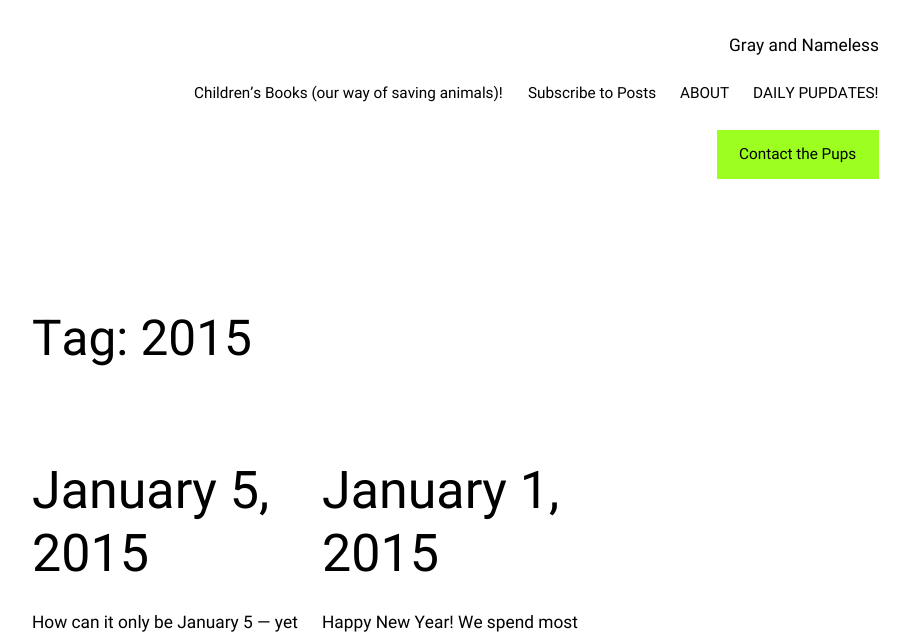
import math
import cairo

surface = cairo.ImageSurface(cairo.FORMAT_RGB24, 911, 632)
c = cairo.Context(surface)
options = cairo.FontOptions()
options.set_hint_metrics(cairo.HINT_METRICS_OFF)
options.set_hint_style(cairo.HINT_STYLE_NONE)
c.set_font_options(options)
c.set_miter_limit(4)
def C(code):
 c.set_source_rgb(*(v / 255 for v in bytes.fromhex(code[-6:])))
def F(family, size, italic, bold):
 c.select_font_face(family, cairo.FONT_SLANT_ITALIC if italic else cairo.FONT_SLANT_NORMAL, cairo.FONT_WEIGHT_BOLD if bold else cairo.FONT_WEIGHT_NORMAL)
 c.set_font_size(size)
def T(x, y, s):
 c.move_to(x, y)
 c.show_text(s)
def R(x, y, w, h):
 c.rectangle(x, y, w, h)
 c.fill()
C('ffffff')
c.paint()
F('Roboto',17.3,0,0)
C('000000')
T(729,51,'Gray and Nameless')
F('Roboto',15.3,0,0)
T(194,98,'Children’s Books (our way of saving animals)!')
T(528,98,'Subscribe to Posts')
T(680,98,'ABOUT')
T(753,98,'DAILY PUPDATES!')
C('9dff20')
R(717,130,162,49)
C('000000')
T(739,159,'Contact the Pups')
F('Roboto',49.5,0,0)
T(32,355,'Tag: 2015')
F('Roboto',52,0,0)
T(32,508,'January 5,')
T(32,571,'2015')
F('Roboto',17.3,0,0)
T(32,628,'How can it only be January 5 — yet')
F('Roboto',52,0,0)
T(322,508,'January 1,')
T(322,571,'2015')
F('Roboto',17.3,0,0)
T(322,628,'Happy New Year! We spend most')
surface.write_to_png('o.png')
